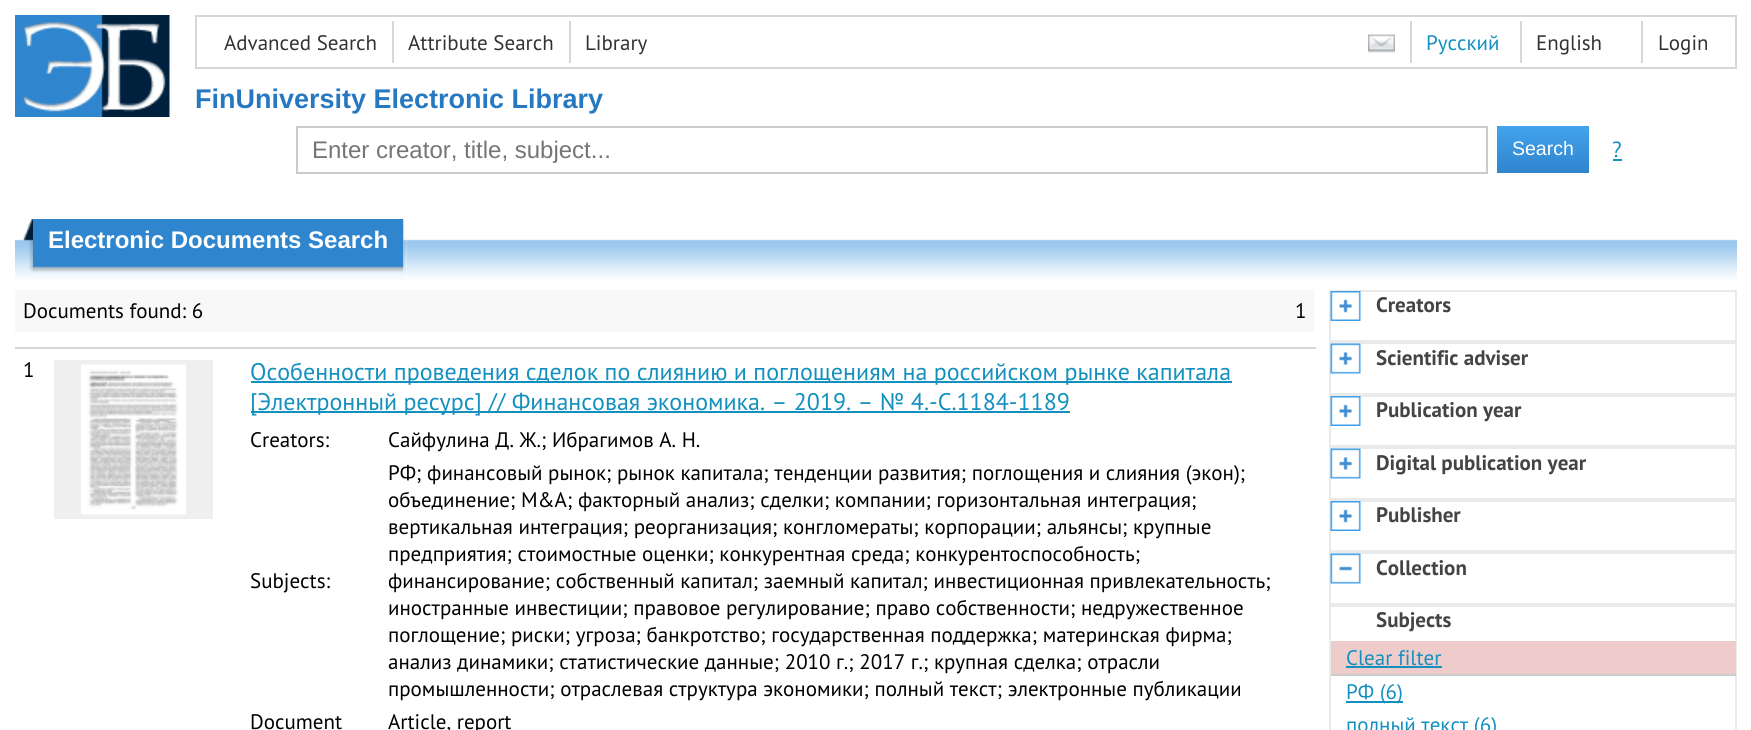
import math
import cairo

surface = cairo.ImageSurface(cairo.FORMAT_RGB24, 1751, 730)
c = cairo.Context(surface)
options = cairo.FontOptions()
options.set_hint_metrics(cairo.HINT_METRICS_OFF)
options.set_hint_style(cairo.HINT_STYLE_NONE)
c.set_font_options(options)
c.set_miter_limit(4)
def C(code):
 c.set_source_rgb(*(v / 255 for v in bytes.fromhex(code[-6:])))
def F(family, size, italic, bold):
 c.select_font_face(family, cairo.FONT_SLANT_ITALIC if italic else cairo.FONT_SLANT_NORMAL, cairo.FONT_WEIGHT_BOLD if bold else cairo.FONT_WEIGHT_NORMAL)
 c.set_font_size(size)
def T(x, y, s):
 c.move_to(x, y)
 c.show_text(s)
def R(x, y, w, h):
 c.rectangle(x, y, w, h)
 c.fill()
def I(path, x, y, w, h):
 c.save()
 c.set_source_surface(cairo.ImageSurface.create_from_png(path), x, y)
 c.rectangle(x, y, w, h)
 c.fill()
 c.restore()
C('ffffff')
c.paint()
I('1.png',15,15,155,102)
c.rectangle(196,16,1540,52)
C('d5d8db')
c.stroke()
F('PT Sans',21,0,0)
C('333333')
T(224,50,'Advanced Search')
C('d5d8db')
R(392,21,2,42)
C('333333')
T(408,50,'Attribute Search')
C('d5d8db')
R(569,21,2,42)
C('333333')
T(585,50,'Library')
I('2.png',1368,34,27,19)
C('1390be')
T(1426,50,'Русский')
C('d5d8db')
R(1410,21,2,42)
C('333333')
T(1536,50,'English')
C('d5d8db')
R(1520,21,2,42)
C('333333')
T(1658,50,'Login')
C('d5d8db')
R(1641,21,2,42)
F('Liberation Sans',27,0,1)
C('2679c0')
T(195,108,'FinUniversity Electronic Library')
c.rectangle(297,127,1190,46)
C('cccccc')
c.stroke()
F('Liberation Sans',24,0,0)
C('757575')
T(312,158,'Enter creator, title, subject...')
gradient = cairo.LinearGradient(1543,126,1543,173)
gradient.add_color_stop_rgba(0,0.259,0.639,0.929,1)
gradient.add_color_stop_rgba(1,0.188,0.518,0.808,1)
c.set_source(gradient)
R(1497,126,92,47)
F('Liberation Sans',19.5,0,0)
C('ffffff')
T(1512,155,'Search')
F('PT Sans',22,0,0)
C('1390be')
T(1612,157,'?')
R(1613,159,9,2)
I('3.png',15,219,18,61)
I('4.png',33,219,371,61)
F('Liberation Sans',24,0,1)
C('ffffff')
T(48,248,'Electronic Documents Search')
I('5.png',403,219,4,61)
I('6.png',406,239,1331,41)
C('f8f8f8')
R(15,290,1299,42)
F('PT Sans',21,0,0)
C('000000')
T(23,318,'Documents found: 6')
T(1295,318,'1')
C('d4d7da')
R(15,347,1301,2)
C('000000')
T(23,377,'1')
C('efefef')
R(54,360,159,159)
I('7.png',81,364,105,151)
C('1390be')
R(251,381,981,2)
F('PT Sans',24,0,0)
T(250,380,'Особенности проведения сделок по слиянию и поглощениям на российском рынке капитала')
R(251,411,819,2)
T(250,410,'[Электронный ресурс] // Финансовая экономика. – 2019. – № 4.-С.1184-1189')
F('PT Sans',21,0,0)
C('000000')
T(250,447,'Creators:')
T(388,447,'Сайфулина Д. Ж.; Ибрагимов А. Н.')
T(250,588,'Subjects:')
T(388,480,'РФ; финансовый рынок; рынок капитала; тенденции развития; поглощения и слияния (экон);')
T(388,507,'объединение; M&A; факторный анализ; сделки; компании; горизонтальная интеграция;')
T(388,534,'вертикальная интеграция; реорганизация; конгломераты; корпорации; альянсы; крупные')
T(388,561,'предприятия; стоимостные оценки; конкурентная среда; конкурентоспособность;')
T(388,588,'финансирование; собственный капитал; заемный капитал; инвестиционная привлекательность;')
T(388,615,'иностранные инвестиции; правовое регулирование; право собственности; недружественное')
T(388,642,'поглощение; риски; угроза; банкротство; государственная поддержка; материнская фирма;')
T(388,669,'анализ динамики; статистические данные; 2010 г.; 2017 г.; крупная сделка; отрасли')
T(388,696,'промышленности; отраслевая структура экономики; полный текст; электронные публикации')
T(250,729,'Document')
T(388,729,'Article, report')
c.rectangle(1330,291,406,50)
C('eaeaea')
c.stroke()
I('8.png',1330,291,31,30)
F('PT Sans',21,0,1)
C('444444')
T(1376,312,'Creators')
c.rectangle(1330,343,406,51)
C('eaeaea')
c.stroke()
I('9.png',1330,343,31,31)
C('444444')
T(1376,365,'Scientific adviser')
c.rectangle(1330,396,406,50)
C('eaeaea')
c.stroke()
I('8.png',1330,396,31,30)
C('444444')
T(1376,417,'Publication year')
c.rectangle(1330,448,406,51)
C('eaeaea')
c.stroke()
I('9.png',1330,448,31,31)
C('444444')
T(1376,470,'Digital publication year')
c.rectangle(1330,501,406,50)
C('eaeaea')
c.stroke()
I('8.png',1330,501,31,30)
C('444444')
T(1376,522,'Publisher')
c.rectangle(1330,553,406,51)
C('eaeaea')
c.stroke()
I('10.png',1330,553,31,31)
C('444444')
T(1376,575,'Collection')
c.rectangle(1330,606,406,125)
C('eaeaea')
c.stroke()
C('444444')
T(1376,627,'Subjects')
C('eecccc')
R(1331,641,405,33)
C('cccccc')
R(1331,674,405,2)
F('PT Sans',21,0,0)
C('1390be')
T(1346,665,'Clear filter')
R(1346,666,96,2)
R(1346,701,57,2)
T(1346,699,'РФ (6)')
T(1346,732,'полный текст (6)')
surface.write_to_png('o.png')
